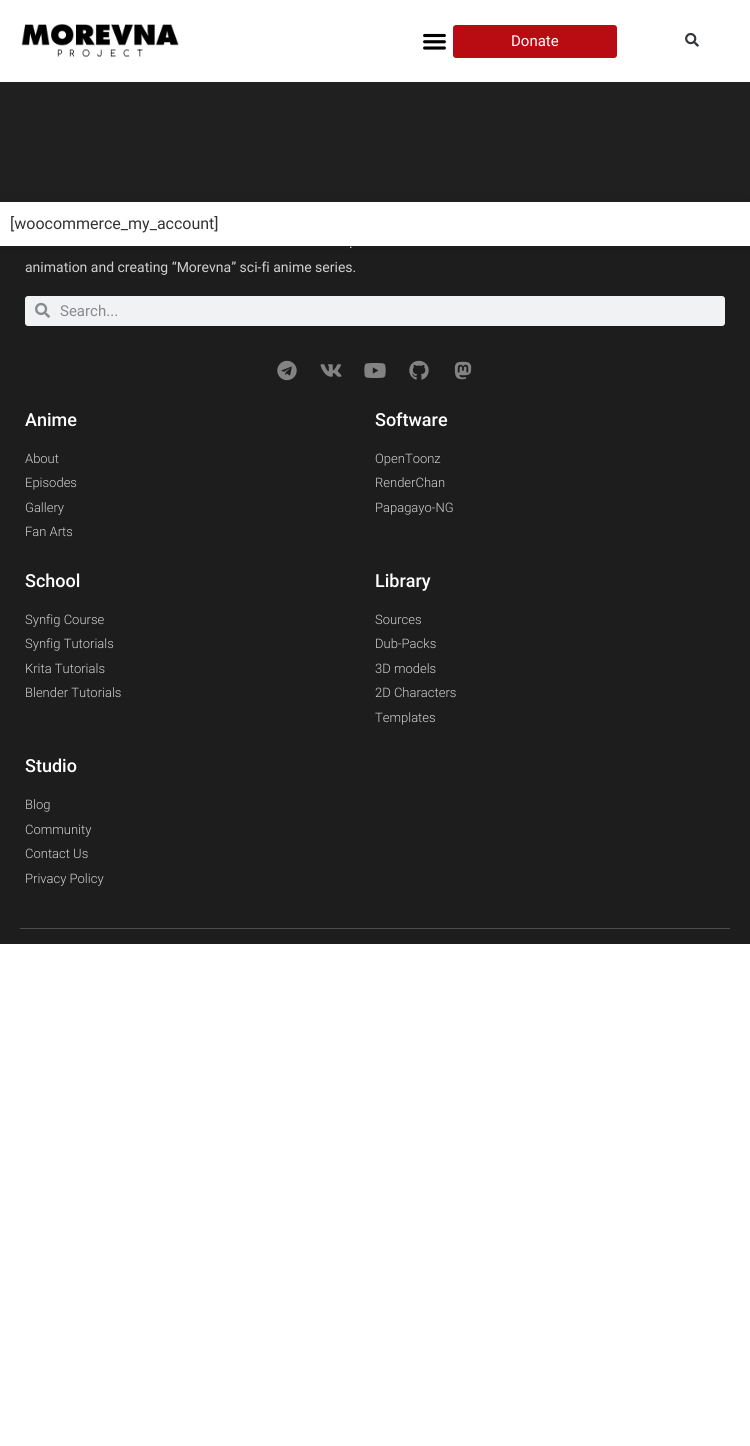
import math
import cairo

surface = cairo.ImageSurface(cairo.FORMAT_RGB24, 750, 1446)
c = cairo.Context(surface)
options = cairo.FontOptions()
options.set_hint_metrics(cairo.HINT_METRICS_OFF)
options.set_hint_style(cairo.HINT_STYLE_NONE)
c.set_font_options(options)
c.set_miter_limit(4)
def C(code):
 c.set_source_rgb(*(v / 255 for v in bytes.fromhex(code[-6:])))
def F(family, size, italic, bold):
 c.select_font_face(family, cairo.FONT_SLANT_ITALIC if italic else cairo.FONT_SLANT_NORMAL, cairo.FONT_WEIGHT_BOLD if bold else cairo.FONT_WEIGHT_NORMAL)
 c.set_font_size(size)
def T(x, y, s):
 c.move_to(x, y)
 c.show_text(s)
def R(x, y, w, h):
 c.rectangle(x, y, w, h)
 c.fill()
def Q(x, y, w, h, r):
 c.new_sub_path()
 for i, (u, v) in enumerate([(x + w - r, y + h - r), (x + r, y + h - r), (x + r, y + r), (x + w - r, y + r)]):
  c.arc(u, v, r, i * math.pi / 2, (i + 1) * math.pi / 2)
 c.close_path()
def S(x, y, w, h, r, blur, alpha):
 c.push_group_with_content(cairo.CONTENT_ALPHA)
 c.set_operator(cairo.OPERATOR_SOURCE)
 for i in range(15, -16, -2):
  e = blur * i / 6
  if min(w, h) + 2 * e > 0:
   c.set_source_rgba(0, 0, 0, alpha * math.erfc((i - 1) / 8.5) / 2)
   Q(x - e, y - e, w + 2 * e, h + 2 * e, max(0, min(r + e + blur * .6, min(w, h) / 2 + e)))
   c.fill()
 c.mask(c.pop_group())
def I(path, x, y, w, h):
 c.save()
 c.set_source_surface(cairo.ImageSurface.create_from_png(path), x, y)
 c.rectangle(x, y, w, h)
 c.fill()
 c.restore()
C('ffffff')
c.paint()
I('1.png',21,24,158,33)
I('2.png',423,33,23,17)
C('b80c12')
Q(453,25,164,33,3)
c.fill()
F('Roboto',15,0,0)
C('ffffff')
T(511,46,'Donate')
I('3.png',685,32,14,15)
C('202020')
R(0,82,750,120)
C('1d1d1d')
R(0,246,750,698)
C('000000')
S(0,202,750,44,0,10,.09)
C('ffffff')
R(0,202,750,44)
F('Roboto',16,0,0)
C('333333')
T(10,229,'[woocommerce_my_account]')
F('Roboto',14,0,0)
C('d0d0d0')
T(349,248,'.')
T(25,272,'animation and creating “Morevna” sci-fi anime series.')
C('f1f2f3')
Q(25,296,700,30,3)
c.fill()
I('4.png',35,302,15,16)
F('Roboto',15,0,0)
C('868a8e')
T(60,316,'Search...')
I('5.png',277,360,20,21)
I('6.png',320,364,22,13)
I('7.png',364,363,22,15)
I('8.png',409,360,20,20)
I('9.png',454,361,18,19)
F('Roboto Medium',18,0,0)
C('ffffff')
T(25,426,'Anime')
F('Roboto Light',13,0,0)
C('d0d0d0')
T(25,463,'About')
T(25,487,'Episodes')
T(25,512,'Gallery')
T(25,536,'Fan Arts')
F('Roboto Medium',18,0,0)
C('ffffff')
T(375,426,'Software')
F('Roboto Light',13,0,0)
C('d0d0d0')
T(375,463,'OpenToonz')
T(375,487,'RenderChan')
T(375,512,'Papagayo-NG')
F('Roboto Medium',18,0,0)
C('ffffff')
T(25,587,'School')
F('Roboto Light',13,0,0)
C('d0d0d0')
T(25,624,'Synfig Course')
T(25,648,'Synfig Tutorials')
T(25,673,'Krita Tutorials')
T(25,697,'Blender Tutorials')
F('Roboto Medium',18,0,0)
C('ffffff')
T(375,587,'Library')
F('Roboto Light',13,0,0)
C('d0d0d0')
T(375,624,'Sources')
T(375,648,'Dub-Packs')
T(375,673,'3D models')
T(375,697,'2D Characters')
T(375,722,'Templates')
F('Roboto Medium',18,0,0)
C('ffffff')
T(25,772,'Studio')
F('Roboto Light',13,0,0)
C('d0d0d0')
T(25,809,'Blog')
T(25,834,'Community')
T(25,858,'Contact Us')
T(25,883,'Privacy Policy')
C('4c4c4c')
R(20,928,710,1)
surface.write_to_png('o.png')
